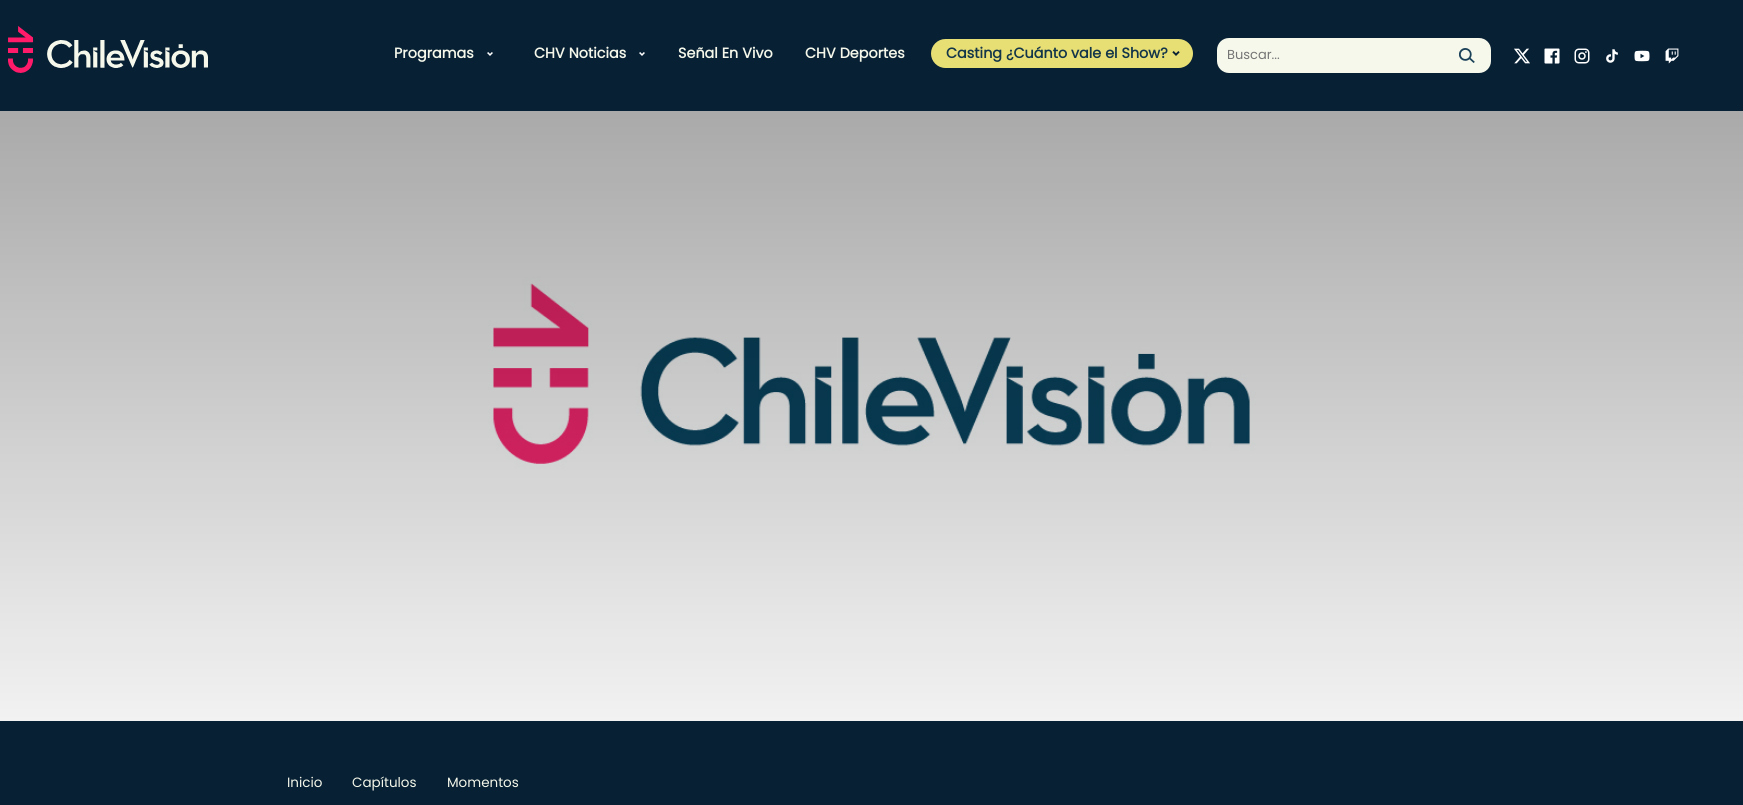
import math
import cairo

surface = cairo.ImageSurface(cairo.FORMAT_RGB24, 1743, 805)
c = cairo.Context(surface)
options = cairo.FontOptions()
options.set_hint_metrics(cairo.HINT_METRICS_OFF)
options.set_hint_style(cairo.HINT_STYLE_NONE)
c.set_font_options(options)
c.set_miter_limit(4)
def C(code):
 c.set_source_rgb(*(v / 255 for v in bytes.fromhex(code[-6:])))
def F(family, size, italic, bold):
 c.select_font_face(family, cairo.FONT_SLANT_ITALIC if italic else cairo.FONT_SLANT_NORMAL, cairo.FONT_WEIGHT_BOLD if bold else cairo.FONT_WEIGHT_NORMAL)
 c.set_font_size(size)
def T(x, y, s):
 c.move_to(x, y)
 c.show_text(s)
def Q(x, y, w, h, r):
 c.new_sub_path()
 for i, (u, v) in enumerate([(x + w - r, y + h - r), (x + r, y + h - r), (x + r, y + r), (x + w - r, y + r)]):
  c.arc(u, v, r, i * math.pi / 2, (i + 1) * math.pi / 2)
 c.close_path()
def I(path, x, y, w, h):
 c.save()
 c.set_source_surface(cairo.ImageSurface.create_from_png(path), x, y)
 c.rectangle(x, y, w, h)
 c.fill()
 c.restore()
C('072034')
c.paint()
I('1.png',8,26,200,47)
I('2.png',487,52,6,4)
F('Poppins',14.4,0,1)
C('f4f7e9')
T(394,58,'Programas')
I('2.png',639,52,6,4)
T(534,58,'CHV Noticias')
T(678,58,'Señal En Vivo')
T(805,58,'CHV Deportes')
C('e7de74')
Q(931,39,262,29,14.5)
c.fill()
I('3.png',1172,51,8,5)
C('123549')
T(946,58,'Casting ¿Cuánto vale el Show?')
C('f5f8ea')
Q(1217,38,274,35,12)
c.fill()
I('4.png',1459,48,16,15)
F('Poppins',13,0,0)
C('757575')
T(1227,59,'Buscar...')
I('5.png',1514,48,16,16)
I('6.png',1544,48,16,16)
I('7.png',1574,48,16,16)
I('8.png',1606,49,12,14)
I('9.png',1634,50,16,12)
I('10.png',1665,48,14,16)
I('11.png',0,111,1743,610)
F('Poppins',13.5,0,0)
C('f4f7e9')
T(287,787,'Inicio')
T(352,787,'Capítulos')
T(447,787,'Momentos')
surface.write_to_png('o.png')
